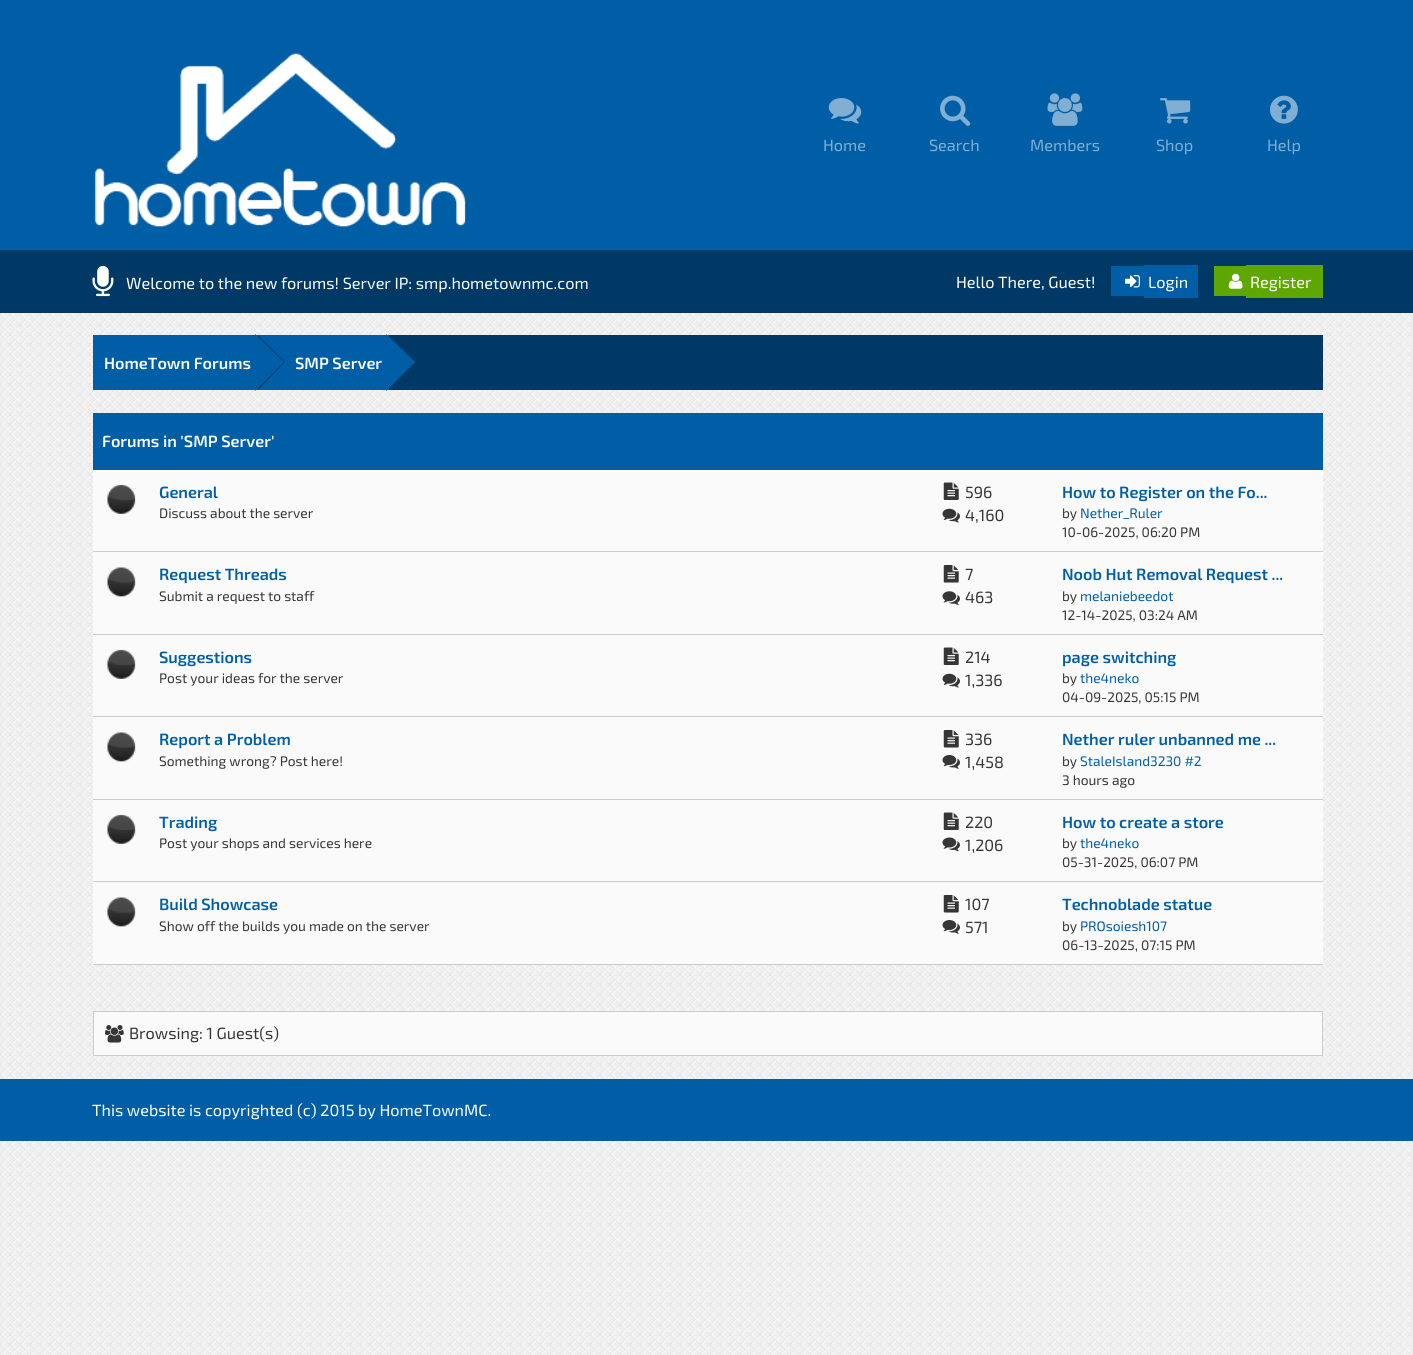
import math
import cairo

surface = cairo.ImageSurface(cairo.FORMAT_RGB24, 1413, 1355)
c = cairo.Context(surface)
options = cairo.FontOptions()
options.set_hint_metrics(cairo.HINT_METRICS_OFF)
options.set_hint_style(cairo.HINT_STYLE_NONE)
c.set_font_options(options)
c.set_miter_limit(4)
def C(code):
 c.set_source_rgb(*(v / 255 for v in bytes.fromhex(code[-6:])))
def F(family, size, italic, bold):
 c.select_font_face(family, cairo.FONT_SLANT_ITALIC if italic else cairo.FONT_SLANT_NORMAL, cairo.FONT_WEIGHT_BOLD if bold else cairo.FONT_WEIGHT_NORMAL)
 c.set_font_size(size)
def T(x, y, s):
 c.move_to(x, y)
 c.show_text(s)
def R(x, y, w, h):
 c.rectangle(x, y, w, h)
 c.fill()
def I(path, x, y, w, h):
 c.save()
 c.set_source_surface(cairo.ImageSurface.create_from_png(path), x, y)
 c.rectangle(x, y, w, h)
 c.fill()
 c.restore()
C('efefef')
c.paint()
I('1.png',0,313,1413,1042)
C('005ea7')
R(0,0,1413,250)
I('2.png',94,53,372,174)
I('3.png',828,98,34,26)
F('Exo 2',16.25,0,0)
C('80afd3')
T(823,151,'Home')
I('4.png',940,95,31,31)
T(929,151,'Search')
I('5.png',1047,93,36,33)
T(1030,151,'Members')
I('6.png',1160,98,31,26)
T(1156,151,'Shop')
I('7.png',1270,95,28,29)
T(1267,151,'Help')
C('003965')
R(0,250,1413,63)
I('8.png',92,265,22,32)
C('ffffff')
T(126,289,'Welcome to the new forums! Server IP: smp.hometownmc.com')
T(956,288,'Hello There, Guest!')
C('005ea7')
R(1111,266,33,30)
R(1144,265,54,33)
I('9.png',1125,275,15,13)
C('ffffff')
T(1148,288,'Login')
C('5ea700')
R(1214,266,32,30)
R(1246,265,77,33)
I('10.png',1228,273,15,16)
C('ffffff')
T(1250,288,'Register')
C('003965')
R(389,335,934,55)
C('005ea7')
R(93,335,296,55)
F('Exo 2 SemiBold',16.25,0,0)
C('ffffff')
T(104,369,'HomeTown Forums')
C('003c6d')
c.new_path()
c.move_to(258,390)
c.line_to(258,335)
c.line_to(285,362)
c.close_path()
c.fill()
C('005ea7')
c.new_path()
c.move_to(255,391)
c.line_to(255,334)
c.line_to(284,362)
c.close_path()
c.fill()
C('ffffff')
T(295,369,'SMP Server')
C('003c6d')
c.new_path()
c.move_to(389,390)
c.line_to(389,335)
c.line_to(416,362)
c.close_path()
c.fill()
C('005ea7')
c.new_path()
c.move_to(386,391)
c.line_to(386,334)
c.line_to(415,362)
c.close_path()
c.fill()
R(93,413,1230,57)
C('ffffff')
T(102,447,'Forums in \'SMP Server\'')
C('fafafa')
R(93,470,1230,83)
C('cccccc')
R(93,551,1230,1)
I('11.png',107,484,29,30)
C('005ea7')
T(159,498,'General')
F('Exo 2',13.75,0,0)
C('363636')
T(159,518,'Discuss about the server')
I('12.png',943,482,16,18)
F('Exo 2',16.25,0,0)
T(965,498,'596')
I('13.png',942,508,18,15)
T(965,521,'4,160')
F('Exo 2 SemiBold',16.25,0,0)
C('005ea7')
T(1062,498,'How to Register on the Fo...')
F('Exo 2',13.75,0,0)
C('363636')
T(1062,518,'by')
C('005ea7')
T(1080,518,'Nether_Ruler')
C('363636')
T(1062,537,'10-06-2025, 06:20 PM')
C('fafafa')
R(93,553,1230,81)
C('cccccc')
R(93,634,1230,1)
I('14.png',107,567,29,30)
F('Exo 2 SemiBold',16.25,0,0)
C('005ea7')
T(159,580,'Request Threads')
F('Exo 2',13.75,0,0)
C('363636')
T(159,601,'Submit a request to staff')
I('15.png',943,565,16,18)
F('Exo 2',16.25,0,0)
T(965,580,'7')
I('16.png',942,591,18,14)
T(965,603,'463')
F('Exo 2 SemiBold',16.25,0,0)
C('005ea7')
T(1062,580,'Noob Hut Removal Request ...')
F('Exo 2',13.75,0,0)
C('363636')
T(1062,601,'by')
C('005ea7')
T(1080,601,'melaniebeedot')
C('363636')
T(1062,620,'12-14-2025, 03:24 AM')
C('fafafa')
R(93,635,1230,83)
C('cccccc')
R(93,716,1230,1)
I('11.png',107,649,29,30)
F('Exo 2 SemiBold',16.25,0,0)
C('005ea7')
T(159,663,'Suggestions')
F('Exo 2',13.75,0,0)
C('363636')
T(159,683,'Post your ideas for the server')
I('12.png',943,647,16,18)
F('Exo 2',16.25,0,0)
T(965,663,'214')
I('13.png',942,673,18,15)
T(965,686,'1,336')
F('Exo 2 SemiBold',16.25,0,0)
C('005ea7')
T(1062,663,'page switching')
F('Exo 2',13.75,0,0)
C('363636')
T(1062,683,'by')
C('005ea7')
T(1080,683,'the4neko')
C('363636')
T(1062,702,'04-09-2025, 05:15 PM')
C('fafafa')
R(93,718,1230,81)
C('cccccc')
R(93,799,1230,1)
I('17.png',107,732,29,30)
F('Exo 2 SemiBold',16.25,0,0)
C('005ea7')
T(159,745,'Report a Problem')
F('Exo 2',13.75,0,0)
C('363636')
T(159,766,'Something wrong? Post here!')
I('15.png',943,730,16,18)
F('Exo 2',16.25,0,0)
T(965,745,'336')
I('18.png',942,755,18,14)
T(965,768,'1,458')
F('Exo 2 SemiBold',16.25,0,0)
C('005ea7')
T(1062,745,'Nether ruler unbanned me ...')
F('Exo 2',13.75,0,0)
C('363636')
T(1062,766,'by')
C('005ea7')
T(1080,766,'StaleIsland3230 #2')
C('363636')
T(1062,785,'3 hours ago')
C('fafafa')
R(93,800,1230,83)
C('cccccc')
R(93,881,1230,1)
I('11.png',107,814,29,30)
F('Exo 2 SemiBold',16.25,0,0)
C('005ea7')
T(159,828,'Trading')
F('Exo 2',13.75,0,0)
C('363636')
T(159,848,'Post your shops and services here')
I('12.png',943,812,16,18)
F('Exo 2',16.25,0,0)
T(965,828,'220')
I('19.png',942,837,18,15)
T(965,851,'1,206')
F('Exo 2 SemiBold',16.25,0,0)
C('005ea7')
T(1062,828,'How to create a store')
F('Exo 2',13.75,0,0)
C('363636')
T(1062,848,'by')
C('005ea7')
T(1080,848,'the4neko')
C('363636')
T(1062,867,'05-31-2025, 06:07 PM')
C('fafafa')
R(93,883,1230,81)
C('cccccc')
R(93,964,1230,1)
I('17.png',107,897,29,30)
F('Exo 2 SemiBold',16.25,0,0)
C('005ea7')
T(159,910,'Build Showcase')
F('Exo 2',13.75,0,0)
C('363636')
T(159,931,'Show off the builds you made on the server')
I('15.png',943,895,16,18)
F('Exo 2',16.25,0,0)
T(965,910,'107')
I('18.png',942,920,18,14)
T(965,933,'571')
F('Exo 2 SemiBold',16.25,0,0)
C('005ea7')
T(1062,910,'Technoblade statue')
F('Exo 2',13.75,0,0)
C('363636')
T(1062,931,'by')
C('005ea7')
T(1080,931,'PROsoiesh107')
C('363636')
T(1062,950,'06-13-2025, 07:15 PM')
C('fafafa')
c.rectangle(93.5,1011.5,1229,44)
c.fill_preserve()
C('cccccc')
c.set_line_width(1)
c.stroke()
I('20.png',105,1025,19,18)
F('Exo 2',16.25,0,0)
C('363636')
T(129,1039,'Browsing: 1 Guest(s)')
C('005ea7')
R(0,1079,1413,62)
C('ffffff')
T(92,1116,'This website is copyrighted (c) 2015 by HomeTownMC.')
surface.write_to_png('o.png')
